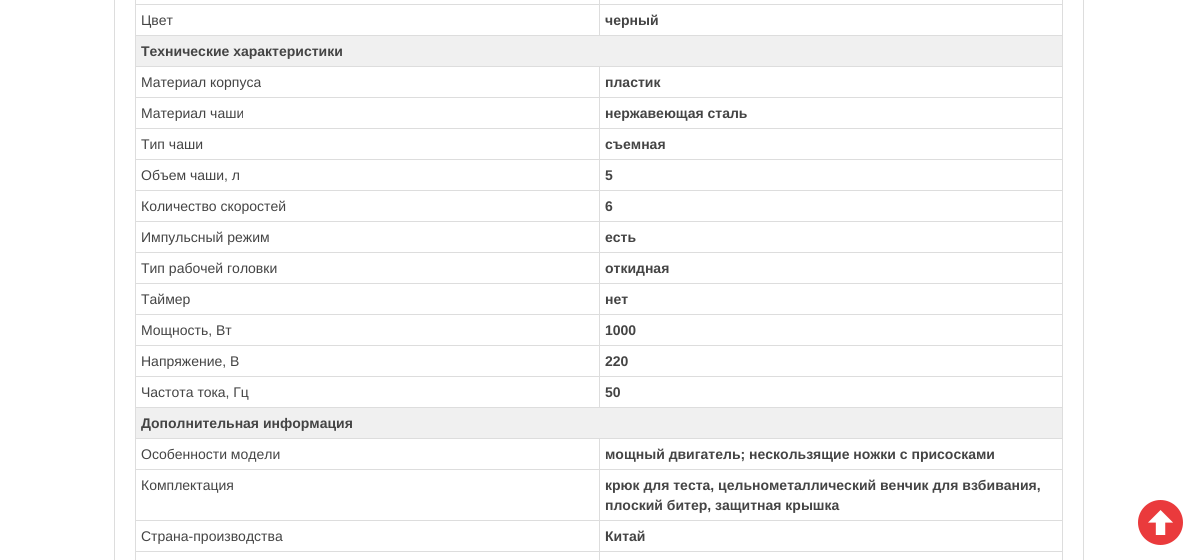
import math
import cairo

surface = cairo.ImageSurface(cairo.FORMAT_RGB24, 1198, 560)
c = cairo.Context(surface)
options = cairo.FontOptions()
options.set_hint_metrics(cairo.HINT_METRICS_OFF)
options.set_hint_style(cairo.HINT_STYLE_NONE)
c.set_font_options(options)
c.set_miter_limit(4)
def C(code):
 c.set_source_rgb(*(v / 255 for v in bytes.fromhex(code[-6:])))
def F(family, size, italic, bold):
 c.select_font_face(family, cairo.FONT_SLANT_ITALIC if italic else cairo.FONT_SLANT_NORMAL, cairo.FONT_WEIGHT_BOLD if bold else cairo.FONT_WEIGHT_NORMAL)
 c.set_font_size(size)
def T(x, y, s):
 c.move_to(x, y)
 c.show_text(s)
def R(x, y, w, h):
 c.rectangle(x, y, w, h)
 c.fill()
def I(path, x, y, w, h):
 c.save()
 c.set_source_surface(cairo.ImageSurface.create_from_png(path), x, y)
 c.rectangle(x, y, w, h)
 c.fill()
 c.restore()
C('ffffff')
c.paint()
C('dddddd')
R(1083,0,1,560)
R(114,0,1,560)
R(1062,0,1,560)
R(135,0,1,560)
R(599,4,464,1)
R(135,35,928,1)
R(599,4,1,32)
R(135,4,465,1)
R(599,0,1,5)
F('Liberation Sans',14,0,0)
C('444444')
T(141,25,'Цвет')
F('Liberation Sans',14,0,1)
T(605,25,'черный')
C('f0f0f0')
R(136,36,926,30)
C('444444')
T(141,56,'Технические характеристики')
C('dddddd')
R(599,66,464,1)
R(599,97,464,1)
R(599,128,464,1)
R(599,159,464,1)
R(599,190,464,1)
R(599,221,464,1)
R(599,252,464,1)
R(599,283,464,1)
R(599,314,464,1)
R(599,345,464,1)
R(599,376,464,1)
R(135,407,928,1)
R(599,376,1,32)
R(135,376,465,1)
R(599,345,1,32)
R(135,345,465,1)
R(599,314,1,32)
R(135,314,465,1)
R(599,283,1,32)
R(135,283,465,1)
R(599,252,1,32)
R(135,252,465,1)
R(599,221,1,32)
R(135,221,465,1)
R(599,190,1,32)
R(135,190,465,1)
R(599,159,1,32)
R(135,159,465,1)
R(599,128,1,32)
R(135,128,465,1)
R(599,97,1,32)
R(135,97,465,1)
R(599,66,1,32)
R(135,66,465,1)
F('Liberation Sans',14,0,0)
C('444444')
T(141,87,'Материал корпуса')
F('Liberation Sans',14,0,1)
T(605,87,'пластик')
F('Liberation Sans',14,0,0)
T(141,118,'Материал чаши')
F('Liberation Sans',14,0,1)
T(605,118,'нержавеющая сталь')
F('Liberation Sans',14,0,0)
T(141,149,'Тип чаши')
F('Liberation Sans',14,0,1)
T(605,149,'съемная')
F('Liberation Sans',14,0,0)
T(141,180,'Объем чаши, л')
F('Liberation Sans',14,0,1)
T(605,180,'5')
F('Liberation Sans',14,0,0)
T(141,211,'Количество скоростей')
F('Liberation Sans',14,0,1)
T(605,211,'6')
F('Liberation Sans',14,0,0)
T(141,242,'Импульсный режим')
F('Liberation Sans',14,0,1)
T(605,242,'есть')
F('Liberation Sans',14,0,0)
T(141,273,'Тип рабочей головки')
F('Liberation Sans',14,0,1)
T(605,273,'откидная')
F('Liberation Sans',14,0,0)
T(141,304,'Таймер')
F('Liberation Sans',14,0,1)
T(605,304,'нет')
F('Liberation Sans',14,0,0)
T(141,335,'Мощность, Вт')
F('Liberation Sans',14,0,1)
T(605,335,'1000')
F('Liberation Sans',14,0,0)
T(141,366,'Напряжение, В')
F('Liberation Sans',14,0,1)
T(605,366,'220')
F('Liberation Sans',14,0,0)
T(141,397,'Частота тока, Гц')
F('Liberation Sans',14,0,1)
T(605,397,'50')
C('f0f0f0')
R(136,408,926,30)
C('444444')
T(141,428,'Дополнительная информация')
C('dddddd')
R(599,438,464,1)
R(599,469,464,1)
R(599,520,464,1)
R(599,551,464,1)
R(599,551,1,9)
R(135,551,465,1)
R(599,520,1,32)
R(135,520,465,1)
R(599,469,1,52)
R(135,469,465,1)
R(599,438,1,32)
R(135,438,465,1)
F('Liberation Sans',14,0,0)
C('444444')
T(141,459,'Особенности модели')
F('Liberation Sans',14,0,1)
T(605,459,'мощный двигатель; нескользящие ножки с присосками')
F('Liberation Sans',14,0,0)
T(141,490,'Комплектация')
F('Liberation Sans',14,0,1)
T(605,490,'крюк для теста, цельнометаллический венчик для взбивания,')
T(605,510,'плоский битер, защитная крышка')
F('Liberation Sans',14,0,0)
T(141,541,'Страна-производства')
F('Liberation Sans',14,0,1)
T(605,541,'Китай')
C('ea3a3c')
c.new_path()
c.arc(1160.5,522.5,22.5,0,2 * math.pi)
c.fill()
I('1.png',1148,510,25,25)
surface.write_to_png('o.png')
